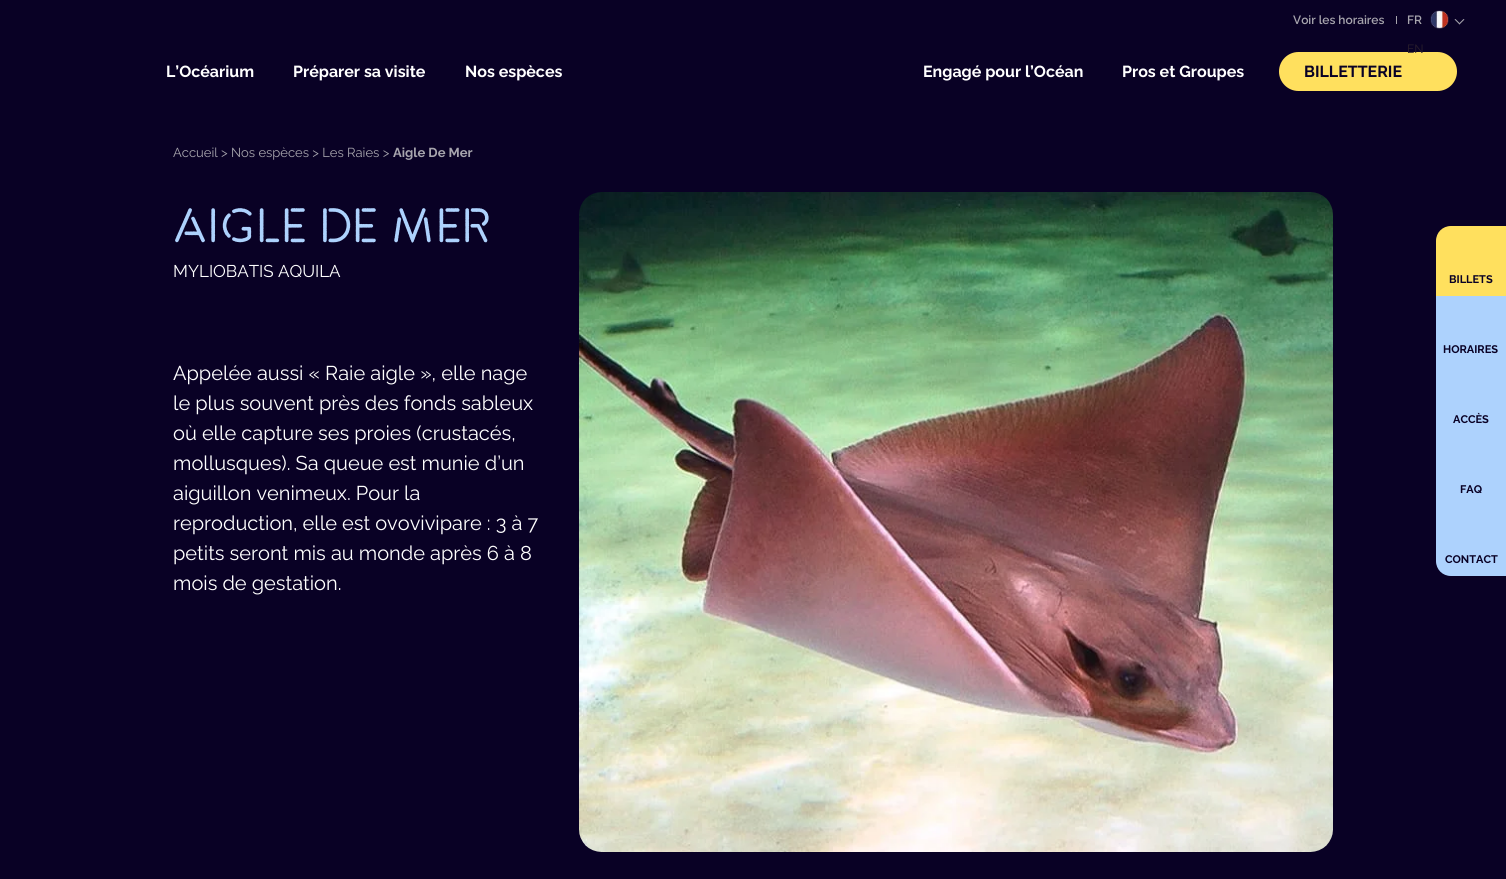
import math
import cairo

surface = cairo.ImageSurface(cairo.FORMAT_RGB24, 1506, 879)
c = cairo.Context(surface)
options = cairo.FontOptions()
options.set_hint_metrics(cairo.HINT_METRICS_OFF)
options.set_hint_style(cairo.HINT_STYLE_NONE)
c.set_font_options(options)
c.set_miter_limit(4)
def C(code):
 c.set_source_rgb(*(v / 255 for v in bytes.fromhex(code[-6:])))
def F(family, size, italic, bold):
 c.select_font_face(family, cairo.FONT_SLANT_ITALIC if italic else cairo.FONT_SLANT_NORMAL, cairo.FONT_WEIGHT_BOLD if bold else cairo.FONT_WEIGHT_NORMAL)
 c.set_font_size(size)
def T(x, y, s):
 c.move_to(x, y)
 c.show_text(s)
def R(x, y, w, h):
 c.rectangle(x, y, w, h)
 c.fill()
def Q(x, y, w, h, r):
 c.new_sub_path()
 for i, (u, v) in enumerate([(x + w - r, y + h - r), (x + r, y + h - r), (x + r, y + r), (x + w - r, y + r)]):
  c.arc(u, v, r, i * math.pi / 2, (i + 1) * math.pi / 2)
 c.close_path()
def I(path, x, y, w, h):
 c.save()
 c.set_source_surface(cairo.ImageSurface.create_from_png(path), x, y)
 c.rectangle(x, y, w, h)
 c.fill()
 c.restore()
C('090125')
c.paint()
F('Raleway SemiBold',12,0,0)
C('a7a5ad')
T(1293,24,'Voir les horaires')
R(1396,16,1,8)
T(1407,24,'FR')
I('1.png',1430,10,19,19)
c.new_path()
c.move_to(1463.5,19)
c.line_to(1464.5,19.5)
c.line_to(1459.5,24.5)
c.line_to(1459,23.5)
c.close_path()
c.fill()
c.new_path()
c.move_to(1455.5,19)
c.line_to(1460,23.5)
c.line_to(1459.5,24.5)
c.line_to(1454.5,19.5)
c.close_path()
c.fill()
C('ffe05e')
Q(1279,52,178,39,19.5)
c.fill()
F('Raleway',12,0,0)
C('291e2c')
T(1407,53,'EN')
F('Raleway',16,0,1)
C('ffffff')
T(166,77,'L’Océarium')
T(293,77,'Préparer sa visite')
T(465,77,'Nos espèces')
T(923,77,'Engagé pour l’Océan')
T(1122,77,'Pros et Groupes')
C('090125')
T(1304,77,'BILLETTERIE')
F('Raleway',13,0,0)
C('a7a5ad')
T(173,157,'Accueil > Nos espèces > Les Raies >')
F('Raleway',13,0,1)
T(393,157,'Aigle De Mer')
F('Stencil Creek',51.5,0,1)
C('add2fd')
T(173,241,'AIGLE DE MER')
F('Raleway',17,0,0)
C('ffffff')
T(173,277,'MYLIOBATIS AQUILA')
F('Raleway',20,0,0)
T(173,380,'Appelée aussi « Raie aigle », elle nage')
T(173,410,'le plus souvent près des fonds sableux')
T(173,440,'où elle capture ses proies (crustacés,')
T(173,470,'mollusques). Sa queue est munie d’un')
T(173,500,'aiguillon venimeux. Pour la')
T(173,530,'reproduction, elle est ovovivipare : 3 à 7')
T(173,560,'petits seront mis au monde après 6 à 8')
T(173,590,'mois de gestation.')
I('2.png',579,192,754,660)
C('ffe05e')
c.new_path()
c.move_to(1451,226)
c.line_to(1506,226)
c.line_to(1506,296)
c.line_to(1436,296)
c.line_to(1436,241)
c.curve_to(1436,232.5,1442.5,226,1451,226)
c.close_path()
c.fill()
F('Raleway',11,0,1)
C('090125')
T(1449,283,'BILLETS')
C('add2fd')
R(1436,296,70,210)
C('090125')
T(1443,353,'HORAIRES')
T(1453,423,'ACCÈS')
T(1460,493,'FAQ')
C('add2fd')
c.new_path()
c.move_to(1436,506)
c.line_to(1506,506)
c.line_to(1506,576)
c.line_to(1451,576)
c.curve_to(1442.5,576,1436,569.5,1436,561)
c.close_path()
c.fill()
C('090125')
T(1445,563,'CONTACT')
surface.write_to_png('o.png')
